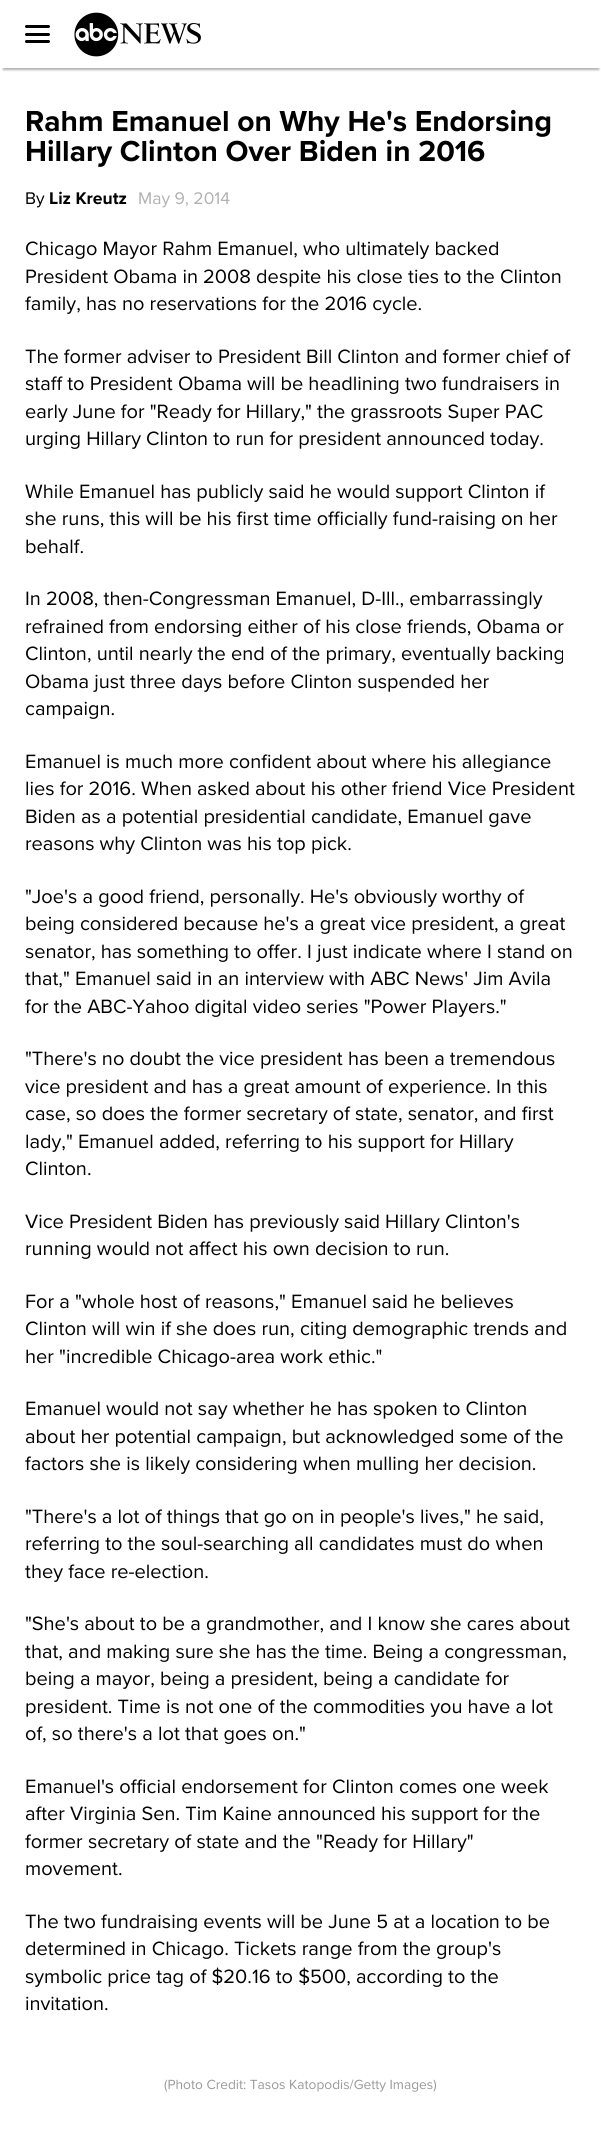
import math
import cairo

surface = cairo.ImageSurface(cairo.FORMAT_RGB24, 601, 2155)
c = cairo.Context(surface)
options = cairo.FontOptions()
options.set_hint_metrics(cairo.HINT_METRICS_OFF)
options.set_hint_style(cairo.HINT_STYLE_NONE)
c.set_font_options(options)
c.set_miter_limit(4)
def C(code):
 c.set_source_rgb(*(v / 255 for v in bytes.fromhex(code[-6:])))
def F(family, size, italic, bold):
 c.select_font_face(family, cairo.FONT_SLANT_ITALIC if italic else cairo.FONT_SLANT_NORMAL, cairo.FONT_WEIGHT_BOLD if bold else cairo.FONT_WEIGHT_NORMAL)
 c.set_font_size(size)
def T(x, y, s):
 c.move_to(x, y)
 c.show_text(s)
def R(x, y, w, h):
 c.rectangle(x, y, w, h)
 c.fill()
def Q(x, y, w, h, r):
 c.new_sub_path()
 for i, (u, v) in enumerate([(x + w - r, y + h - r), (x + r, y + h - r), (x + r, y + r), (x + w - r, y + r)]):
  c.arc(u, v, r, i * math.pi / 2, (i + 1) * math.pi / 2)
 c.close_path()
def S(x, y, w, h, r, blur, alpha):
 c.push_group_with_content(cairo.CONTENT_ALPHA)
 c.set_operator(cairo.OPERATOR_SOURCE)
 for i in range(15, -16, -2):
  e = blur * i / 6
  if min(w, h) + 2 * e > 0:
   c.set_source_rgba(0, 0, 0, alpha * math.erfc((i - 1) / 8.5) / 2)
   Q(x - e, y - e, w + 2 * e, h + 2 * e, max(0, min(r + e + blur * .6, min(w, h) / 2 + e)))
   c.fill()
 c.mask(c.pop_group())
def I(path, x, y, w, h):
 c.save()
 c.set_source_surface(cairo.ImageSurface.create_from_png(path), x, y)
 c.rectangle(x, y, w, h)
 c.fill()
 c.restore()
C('ffffff')
c.paint()
C('000000')
S(3,8,596,62,0,1,.3)
C('ffffff')
R(1,6,600,62)
C('000000')
Q(25,33,25,3,1.5)
c.fill()
Q(25,25,25,3,1.5)
c.fill()
Q(25,40,25,3,1.5)
c.fill()
I('1.png',74,12,127,45)
F('Proxima Nova',30,0,1)
T(25,131,'Rahm Emanuel on Why He\'s Endorsing')
T(25,161,'Hillary Clinton Over Biden in 2016')
F('Proxima Nova',17.5,0,0)
T(25,204,'By')
F('Proxima Nova',17.5,0,1)
T(49,204,'Liz Kreutz')
F('Proxima Nova',17.5,0,0)
C('b2b0b1')
T(138,204,'May 9, 2014')
F('Proxima Nova',20,0,0)
C('000000')
T(25,255,'Chicago Mayor Rahm Emanuel, who ultimately backed')
T(25,283,'President Obama in 2008 despite his close ties to the Clinton')
T(25,310,'family, has no reservations for the 2016 cycle.')
T(25,363,'The former adviser to President Bill Clinton and former chief of')
T(25,390,'staff to President Obama will be headlining two fundraisers in')
T(25,418,'early June for "Ready for Hillary," the grassroots Super PAC')
T(25,445,'urging Hillary Clinton to run for president announced today.')
T(25,498,'While Emanuel has publicly said he would support Clinton if')
T(25,525,'she runs, this will be his first time officially fund-raising on her')
T(25,553,'behalf.')
T(25,605,'In 2008, then-Congressman Emanuel, D-Ill., embarrassingly')
T(25,633,'refrained from endorsing either of his close friends, Obama or')
T(25,660,'Clinton, until nearly the end of the primary, eventually backing')
T(25,688,'Obama just three days before Clinton suspended her')
T(25,715,'campaign.')
T(25,768,'Emanuel is much more confident about where his allegiance')
T(25,795,'lies for 2016. When asked about his other friend Vice President')
T(25,823,'Biden as a potential presidential candidate, Emanuel gave')
T(25,850,'reasons why Clinton was his top pick.')
T(25,903,'"Joe\'s a good friend, personally. He\'s obviously worthy of')
T(25,930,'being considered because he\'s a great vice president, a great')
T(25,958,'senator, has something to offer. I just indicate where I stand on')
T(25,985,'that," Emanuel said in an interview with ABC News\' Jim Avila')
T(25,1013,'for the ABC-Yahoo digital video series "Power Players."')
T(25,1065,'"There\'s no doubt the vice president has been a tremendous')
T(25,1093,'vice president and has a great amount of experience. In this')
T(25,1120,'case, so does the former secretary of state, senator, and first')
T(25,1148,'lady," Emanuel added, referring to his support for Hillary')
T(25,1175,'Clinton.')
T(25,1228,'Vice President Biden has previously said Hillary Clinton\'s')
T(25,1255,'running would not affect his own decision to run.')
T(25,1308,'For a "whole host of reasons," Emanuel said he believes')
T(25,1335,'Clinton will win if she does run, citing demographic trends and')
T(25,1363,'her "incredible Chicago-area work ethic."')
T(25,1415,'Emanuel would not say whether he has spoken to Clinton')
T(25,1443,'about her potential campaign, but acknowledged some of the')
T(25,1470,'factors she is likely considering when mulling her decision.')
T(25,1523,'"There\'s a lot of things that go on in people\'s lives," he said,')
T(25,1550,'referring to the soul-searching all candidates must do when')
T(25,1578,'they face re-election.')
T(25,1630,'"She\'s about to be a grandmother, and I know she cares about')
T(25,1658,'that, and making sure she has the time. Being a congressman,')
T(25,1685,'being a mayor, being a president, being a candidate for')
T(25,1713,'president. Time is not one of the commodities you have a lot')
T(25,1740,'of, so there\'s a lot that goes on."')
T(25,1793,'Emanuel\'s official endorsement for Clinton comes one week')
T(25,1820,'after Virginia Sen. Tim Kaine announced his support for the')
T(25,1848,'former secretary of state and the "Ready for Hillary"')
T(25,1875,'movement.')
T(25,1928,'The two fundraising events will be June 5 at a location to be')
T(25,1955,'determined in Chicago. Tickets range from the group\'s')
T(25,1983,'symbolic price tag of $20.16 to $500, according to the')
T(25,2010,'invitation.')
F('Proxima Nova',13.75,0,0)
C('999999')
T(164,2089,'(Photo Credit: Tasos Katopodis/Getty Images)')
surface.write_to_png('o.png')
